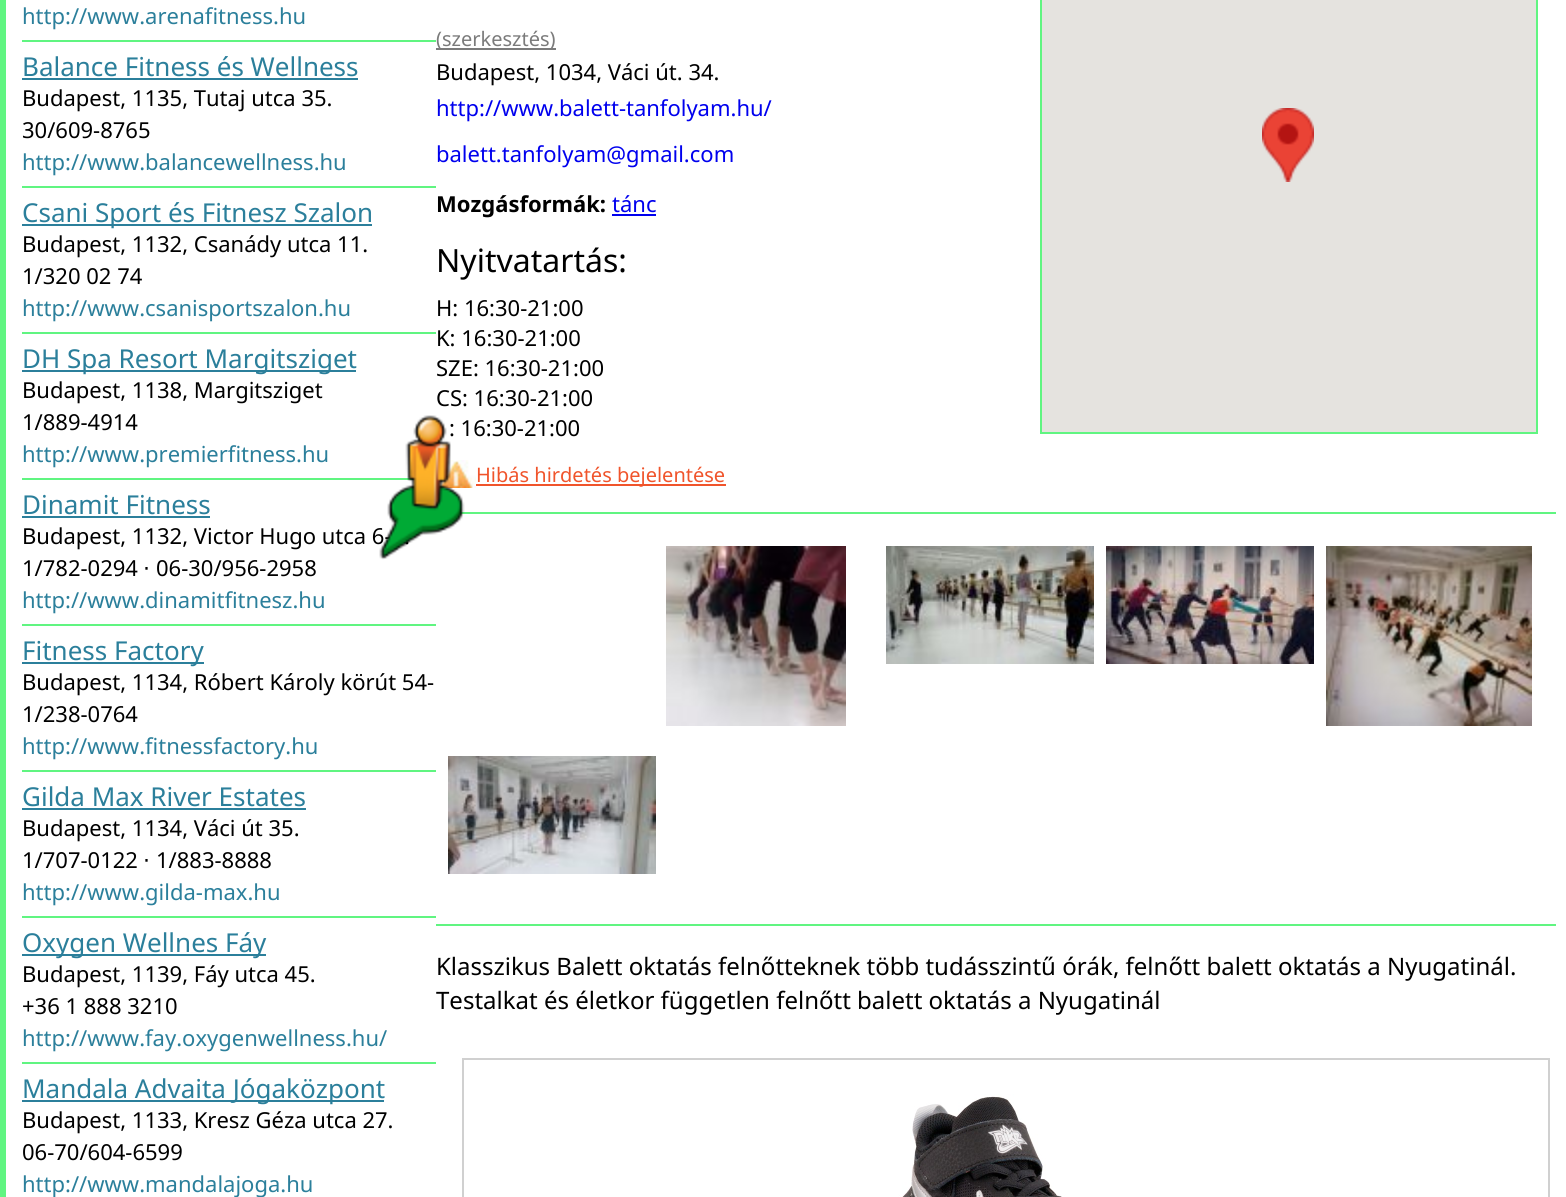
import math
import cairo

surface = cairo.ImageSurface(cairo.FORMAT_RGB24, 1566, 1197)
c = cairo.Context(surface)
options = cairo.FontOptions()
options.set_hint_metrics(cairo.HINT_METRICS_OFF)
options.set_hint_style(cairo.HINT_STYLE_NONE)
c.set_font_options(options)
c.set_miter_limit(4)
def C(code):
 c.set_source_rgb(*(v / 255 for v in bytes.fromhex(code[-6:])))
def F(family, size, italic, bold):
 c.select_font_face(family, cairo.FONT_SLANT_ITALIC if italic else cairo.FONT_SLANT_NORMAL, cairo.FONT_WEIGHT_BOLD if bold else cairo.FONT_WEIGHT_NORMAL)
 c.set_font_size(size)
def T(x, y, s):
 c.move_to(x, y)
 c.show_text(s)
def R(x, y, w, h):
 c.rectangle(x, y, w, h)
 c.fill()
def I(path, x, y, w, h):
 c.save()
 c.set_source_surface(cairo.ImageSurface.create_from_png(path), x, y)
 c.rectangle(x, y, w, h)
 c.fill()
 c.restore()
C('ffffff')
c.paint()
c.rectangle(3,-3,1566,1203)
C('60f581')
c.set_line_width(6)
c.stroke()
R(22,40,414,2)
F('Noto Sans',22,0,0)
C('2b7f9b')
T(22,24,'http://www.arenafitness.hu')
C('60f581')
R(22,186,414,2)
F('Noto Sans',26,0,0)
C('2b7f9b')
T(22,76,'Balance Fitness és Wellness')
R(22,78,336,2)
F('Noto Sans',22,0,0)
C('000000')
T(22,106,'Budapest, 1135, Tutaj utca 35.')
T(22,138,'30/609-8765')
C('2b7f9b')
T(22,170,'http://www.balancewellness.hu')
C('60f581')
R(22,332,414,2)
C('2b7f9b')
R(22,224,350,2)
F('Noto Sans',26,0,0)
T(22,222,'Csani Sport és Fitnesz Szalon')
F('Noto Sans',22,0,0)
C('000000')
T(22,252,'Budapest, 1132, Csanády utca 11.')
T(22,284,'1/320 02 74')
C('2b7f9b')
T(22,316,'http://www.csanisportszalon.hu')
C('60f581')
R(22,478,393,2)
C('2b7f9b')
R(22,370,334,2)
F('Noto Sans',26,0,0)
T(22,368,'DH Spa Resort Margitsziget')
F('Noto Sans',22,0,0)
C('000000')
T(22,398,'Budapest, 1138, Margitsziget')
T(22,430,'1/889-4914')
C('2b7f9b')
T(22,462,'http://www.premierfitness.hu')
C('60f581')
R(22,624,414,2)
F('Noto Sans',26,0,0)
C('2b7f9b')
T(22,514,'Dinamit Fitness')
R(22,516,188,2)
F('Noto Sans',22,0,0)
C('000000')
T(22,544,'Budapest, 1132, Victor Hugo utca 6-8.')
T(22,576,'1/782-0294')
F('DejaVu Sans',22,0,0)
T(143,576,'⋅')
F('Noto Sans',22,0,0)
T(156,576,'06-30/956-2958')
C('2b7f9b')
T(22,608,'http://www.dinamitfitnesz.hu')
C('60f581')
R(22,770,414,2)
C('2b7f9b')
R(22,662,182,2)
F('Noto Sans',26,0,0)
T(22,660,'Fitness Factory')
F('Noto Sans',22,0,0)
C('000000')
T(22,690,'Budapest, 1134, Róbert Károly körút 54-')
T(22,722,'1/238-0764')
C('2b7f9b')
T(22,754,'http://www.fitnessfactory.hu')
C('60f581')
R(22,916,414,2)
F('Noto Sans',26,0,0)
C('2b7f9b')
T(22,806,'Gilda Max River Estates')
R(22,808,284,2)
F('Noto Sans',22,0,0)
C('000000')
T(22,836,'Budapest, 1134, Váci út 35.')
T(22,868,'1/707-0122')
F('DejaVu Sans',22,0,0)
T(143,868,'⋅')
F('Noto Sans',22,0,0)
T(156,868,'1/883-8888')
C('2b7f9b')
T(22,900,'http://www.gilda-max.hu')
C('60f581')
R(22,1062,414,2)
C('2b7f9b')
R(22,954,244,2)
F('Noto Sans',26,0,0)
T(22,952,'Oxygen Wellnes Fáy')
F('Noto Sans',22,0,0)
C('000000')
T(22,982,'Budapest, 1139, Fáy utca 45.')
T(22,1014,'+36 1 888 3210')
C('2b7f9b')
T(22,1046,'http://www.fay.oxygenwellness.hu/')
R(22,1100,362,2)
F('Noto Sans',26,0,0)
T(22,1098,'Mandala Advaita Jógaközpont')
F('Noto Sans',22,0,0)
C('000000')
T(22,1128,'Budapest, 1133, Kresz Géza utca 27.')
T(22,1160,'06-70/604-6599')
C('2b7f9b')
T(22,1192,'http://www.mandalajoga.hu')
C('7b7b7b')
R(436,48,120,2)
F('Noto Sans',20,0,0)
T(436,46,'(szerkesztés)')
F('Noto Sans',22,0,0)
C('000000')
T(436,80,'Budapest, 1034, Váci út. 34.')
C('0000ee')
T(436,116,'http://www.balett-tanfolyam.hu/')
T(436,162,'balett.tanfolyam@gmail.com')
F('Noto Sans',22,0,1)
C('000000')
T(436,212,'Mozgásformák:')
F('Noto Sans',22,0,0)
C('0000ee')
T(612,212,'tánc')
R(612,214,44,2)
F('Noto Sans',32,0,0)
C('000000')
T(436,272,'Nyitvatartás:')
F('Noto Sans',22,0,0)
T(436,316,'H: 16:30-21:00')
T(436,346,'K: 16:30-21:00')
T(436,376,'SZE: 16:30-21:00')
T(436,406,'CS: 16:30-21:00')
T(449,436,': 16:30-21:00')
I('1.png',439,460,37,28)
C('f0542b')
R(476,484,250,2)
F('Noto Sans',20,0,0)
T(476,482,'Hibás hirdetés bejelentése')
c.rectangle(1041,-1,496,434)
C('60f581')
c.set_line_width(2)
c.stroke()
C('e5e3df')
R(1042,0,494,432)
I('2.png',1262,108,52,74)
C('60f581')
R(459,512,1097,2)
I('3.png',379,415,86,145)
I('4.png',666,546,180,180)
I('5.png',886,546,208,118)
I('6.png',1106,546,208,118)
I('7.png',1326,546,206,180)
I('8.png',448,756,208,118)
R(436,924,1120,2)
F('Noto Sans',24,0,0)
C('000000')
T(436,975,'Klasszikus Balett oktatás felnőtteknek több tudásszintű órák, felnőtt balett oktatás a Nyugatinál.')
T(436,1009,'Testalkat és életkor független felnőtt balett oktatás a Nyugatinál')
I('9.png',462,1058,1088,139)
surface.write_to_png('o.png')
